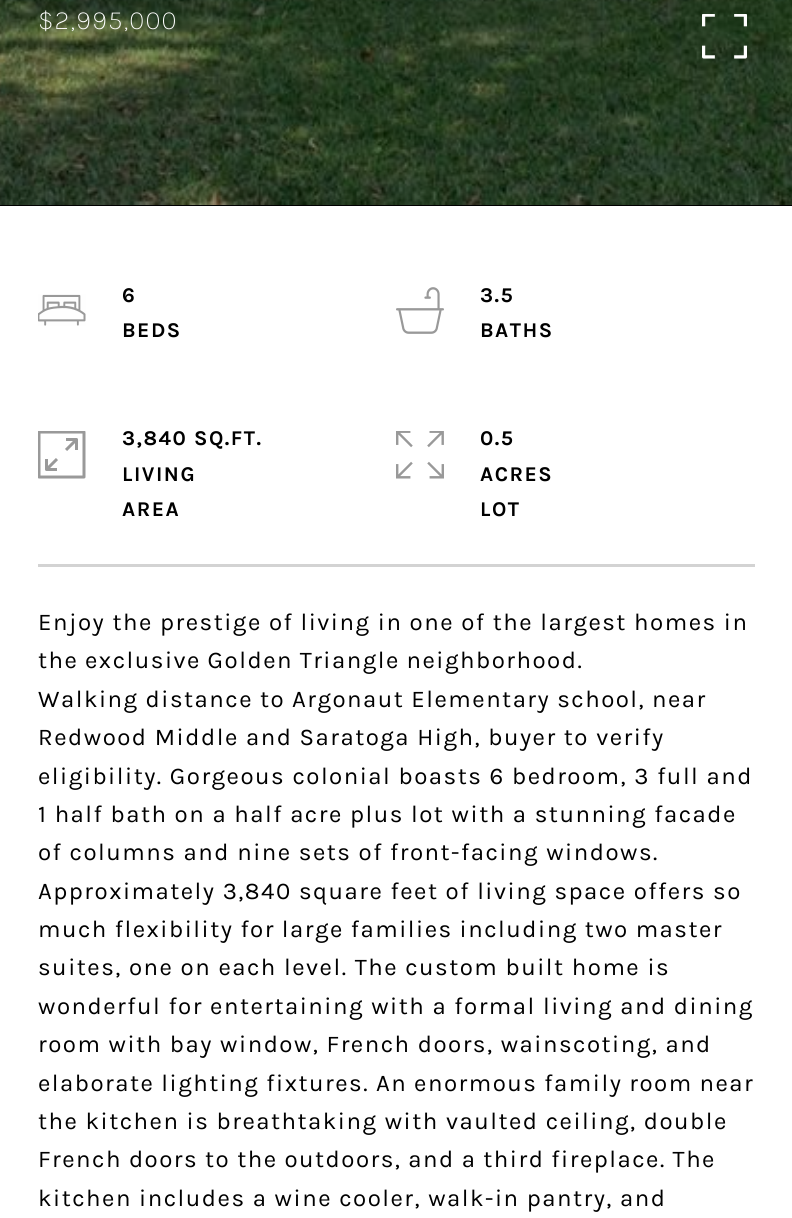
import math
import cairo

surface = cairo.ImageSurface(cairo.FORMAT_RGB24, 792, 1218)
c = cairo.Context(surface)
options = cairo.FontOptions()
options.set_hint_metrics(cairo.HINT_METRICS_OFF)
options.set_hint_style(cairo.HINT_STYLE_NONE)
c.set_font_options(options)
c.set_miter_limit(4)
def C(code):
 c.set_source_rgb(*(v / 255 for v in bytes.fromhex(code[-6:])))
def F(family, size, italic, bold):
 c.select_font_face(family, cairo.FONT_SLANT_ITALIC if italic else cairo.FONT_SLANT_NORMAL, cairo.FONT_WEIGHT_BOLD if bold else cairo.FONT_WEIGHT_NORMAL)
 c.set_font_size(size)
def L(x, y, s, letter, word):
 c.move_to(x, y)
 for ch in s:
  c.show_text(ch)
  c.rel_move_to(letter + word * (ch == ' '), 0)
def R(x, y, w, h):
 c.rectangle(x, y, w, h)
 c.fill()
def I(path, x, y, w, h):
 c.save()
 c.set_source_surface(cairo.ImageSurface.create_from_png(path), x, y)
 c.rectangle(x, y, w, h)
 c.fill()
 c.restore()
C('ffffff')
c.paint()
C('000000')
R(0,0,792,206)
I('1.png',0,0,792,205)
F('Karla ExtraLight',27,0,0)
C('ffffff')
L(38,29,'$2,995,000',1.1,0)
I('2.png',702,14,45,45)
C('d3d3d3')
R(38,564,717,3)
I('3.png',38,294,48,32)
F('Karla',21,0,1)
C('000000')
L(122,302,'6',1.5,0)
L(122,337,'BEDS',1.5,0)
I('4.png',396,287,48,47)
L(480,302,'3.5',1.5,0)
L(480,337,'BATHS',1.5,0)
I('5.png',38,431,48,48)
L(122,445,'3,840 SQ.FT.',1.5,0)
L(122,481,'LIVING',1.5,0)
L(122,516,'AREA',1.5,0)
I('6.png',396,431,48,48)
L(480,445,'0.5',1.5,0)
L(480,481,'ACRES',1.5,0)
L(480,516,'LOT',1.5,0)
F('Karla',24,0,0)
L(38,630,'Enjoy the prestige of living in one of the largest homes in',1.5,0)
L(38,668,'the exclusive Golden Triangle neighborhood.',1.5,-.5)
L(38,707,'Walking distance to Argonaut Elementary school, near',1.5,-.25)
L(38,745,'Redwood Middle and Saratoga High, buyer to verify',1.5,0)
L(38,784,'eligibility. Gorgeous colonial boasts 6 bedroom, 3 full and',1.5,0)
L(38,822,'1 half bath on a half acre plus lot with a stunning facade',1.5,0)
L(38,860,'of columns and nine sets of front-facing windows.',1.5,0)
L(38,899,'Approximately 3,840 square feet of living space offers so',1.5,0)
L(38,937,'much flexibility for large families including two master',1.5,-.25)
L(38,975,'suites, one on each level. The custom built home is',1.5,0)
L(38,1014,'wonderful for entertaining with a formal living and dining',1.5,0)
L(38,1052,'room with bay window, French doors, wainscoting, and',1.5,0)
L(38,1091,'elaborate lighting fixtures. An enormous family room near',1.5,-.25)
L(38,1129,'the kitchen is breathtaking with vaulted ceiling, double',1.5,0)
L(38,1167,'French doors to the outdoors, and a third fireplace. The',1.5,-.25)
L(38,1206,'kitchen includes a wine cooler, walk-in pantry, and',1.5,0)
surface.write_to_png('o.png')
